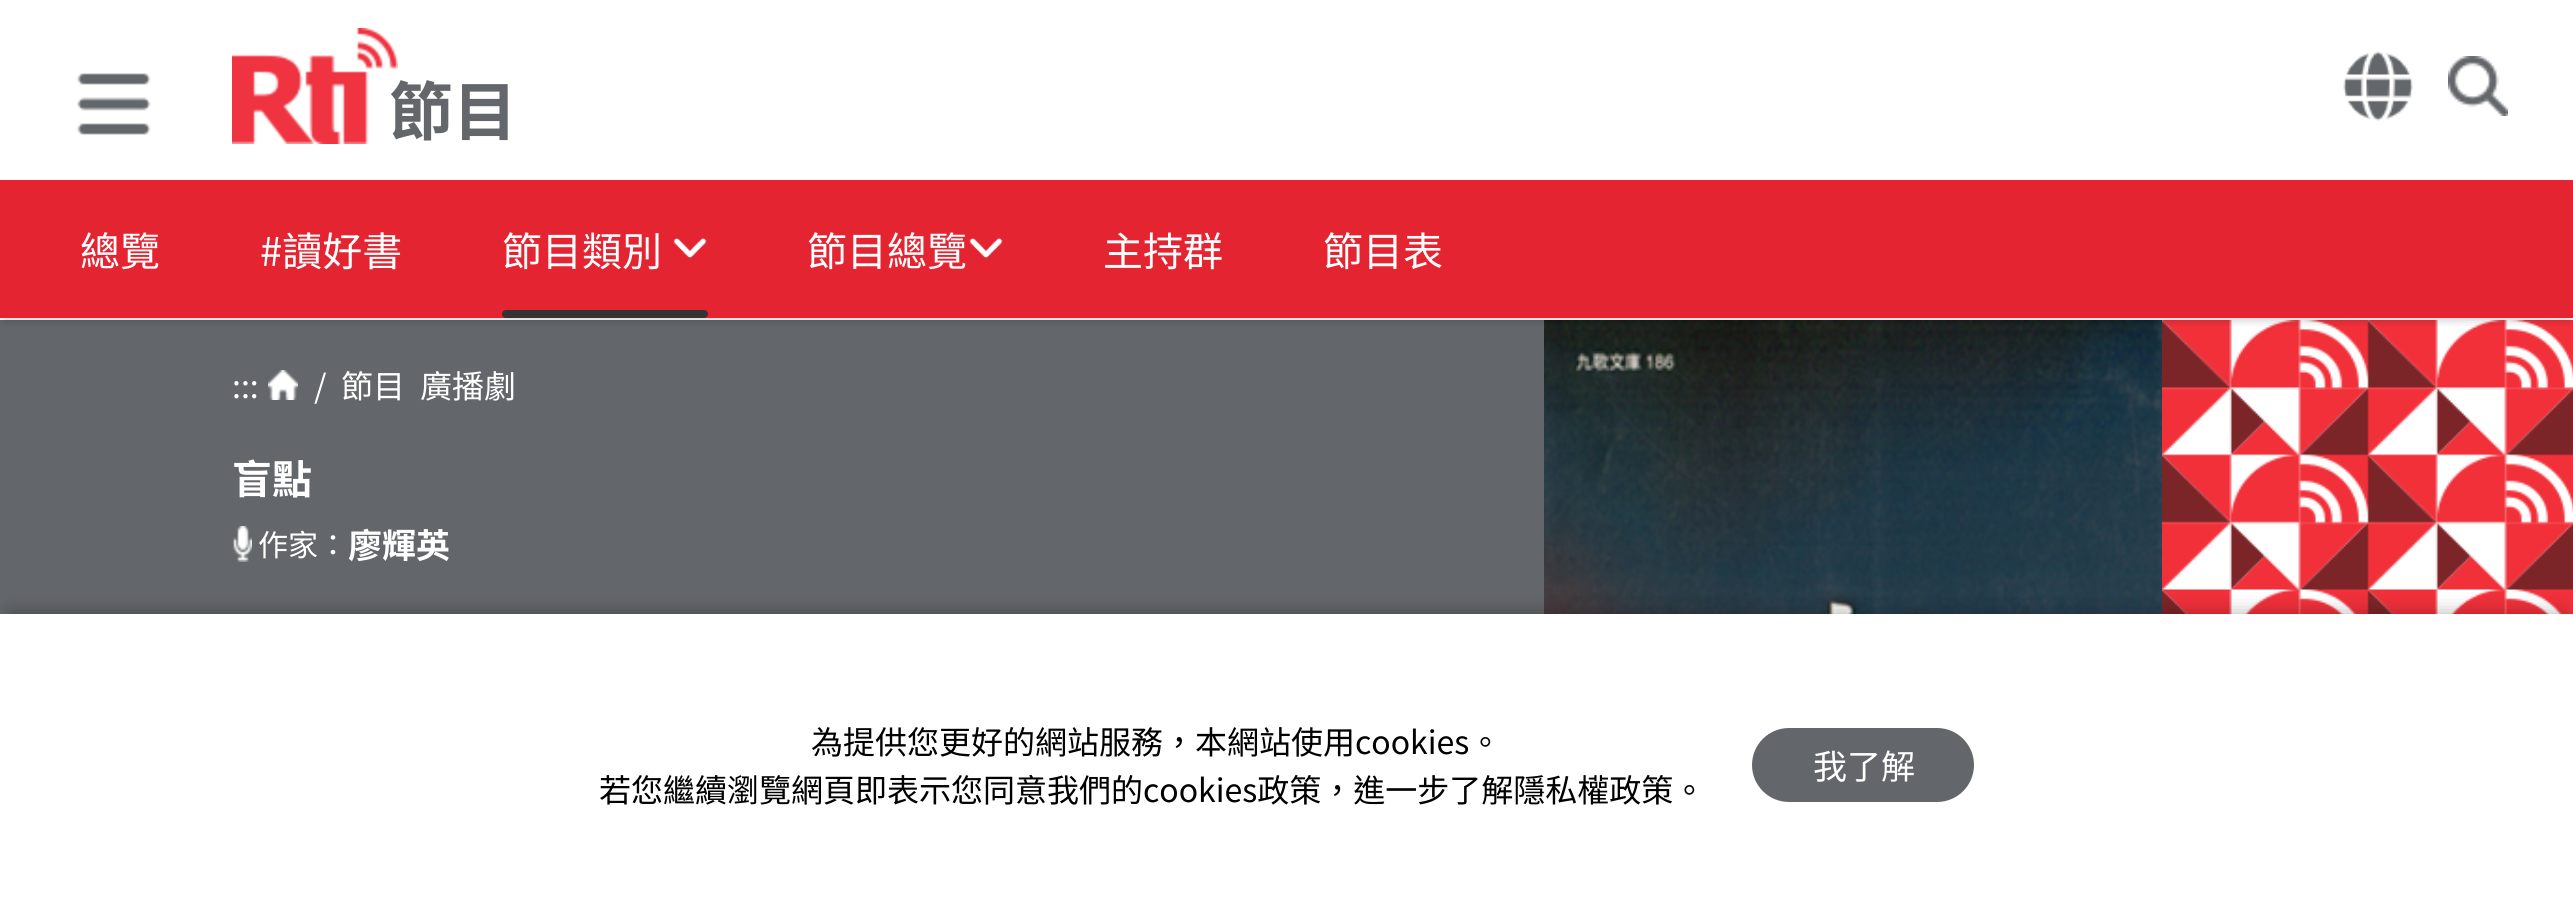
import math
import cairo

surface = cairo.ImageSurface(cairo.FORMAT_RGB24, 2573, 913)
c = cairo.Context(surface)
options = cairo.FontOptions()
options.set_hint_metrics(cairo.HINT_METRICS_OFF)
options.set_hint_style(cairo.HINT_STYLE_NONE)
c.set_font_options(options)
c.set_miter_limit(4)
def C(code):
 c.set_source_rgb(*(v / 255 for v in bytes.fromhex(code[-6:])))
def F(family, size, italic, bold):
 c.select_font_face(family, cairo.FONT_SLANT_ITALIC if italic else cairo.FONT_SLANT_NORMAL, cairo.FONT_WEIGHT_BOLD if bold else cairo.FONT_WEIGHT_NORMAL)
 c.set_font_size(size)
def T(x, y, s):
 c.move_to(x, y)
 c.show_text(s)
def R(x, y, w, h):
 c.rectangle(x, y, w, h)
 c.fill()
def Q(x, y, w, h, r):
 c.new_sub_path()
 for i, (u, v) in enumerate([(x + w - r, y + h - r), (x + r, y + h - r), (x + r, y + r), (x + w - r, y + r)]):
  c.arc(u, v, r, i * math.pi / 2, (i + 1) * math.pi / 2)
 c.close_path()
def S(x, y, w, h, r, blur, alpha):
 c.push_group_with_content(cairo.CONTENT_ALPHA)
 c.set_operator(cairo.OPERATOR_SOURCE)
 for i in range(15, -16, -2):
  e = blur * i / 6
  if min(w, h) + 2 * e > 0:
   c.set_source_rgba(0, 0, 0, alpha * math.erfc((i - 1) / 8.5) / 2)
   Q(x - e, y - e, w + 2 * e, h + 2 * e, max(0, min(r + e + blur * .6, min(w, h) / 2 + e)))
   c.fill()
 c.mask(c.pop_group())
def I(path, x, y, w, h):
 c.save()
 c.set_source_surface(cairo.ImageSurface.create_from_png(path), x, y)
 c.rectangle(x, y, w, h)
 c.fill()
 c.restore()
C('ffffff')
c.paint()
C('63666a')
R(0,320,1544,294)
I('9.png',1544,320,618,294)
I('10.png',2162,320,411,294)
c.save()
c.rectangle(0,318,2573,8)
c.clip()
C('000000')
S(4,10,2566,310,0,5,.2)
c.restore()
I('1.png',77,73,74,62)
I('2.png',232,28,166,116)
F('Noto Sans TC',64,0,1)
T(389,135,'節目')
I('3.png',2343,51,70,70)
I('4.png',2448,56,60,60)
C('e52431')
R(0,180,2573,138)
F('Noto Sans TC',40,0,0)
C('ffffff')
T(80,266,'總覽')
T(260,266,'#讀好書')
T(502,266,'節目類別')
I('5.png',673,238,34,20)
C('333333')
Q(502,310,206,8,4)
c.fill()
C('ffffff')
T(807,266,'節目總覽')
I('6.png',969,238,34,20)
T(1103,266,'主持群')
T(1323,266,'節目表')
F('Noto Sans TC',32,0,0)
T(232,398,':::')
I('7.png',268,370,30,30)
T(314,398,'/')
T(341,398,'節目')
T(420,398,'廣播劇')
F('Noto Sans TC',40,0,1)
T(232,494,'盲點')
I('8.png',232,526,20,36)
F('Noto Sans TC',30,0,0)
T(258,556,'作家：')
F('Noto Sans TC',34,0,1)
T(348,558,'廖輝英')
C('000000')
S(10,614,2554,280,0,10,.3)
C('ffffff')
R(0,614,2573,298)
F('Noto Sans TC',32,0,0)
C('000000')
T(811,754,'為提供您更好的網站服務，本網站使用cookies。')
T(599,802,'若您繼續瀏覽網頁即表示您同意我們的cookies政策，進一步了解隱私權政策。')
C('63666a')
Q(1752,728,222,74,37)
c.fill()
F('Noto Sans TC',34,0,0)
C('ffffff')
T(1813,779,'我了解')
surface.write_to_png('o.png')
